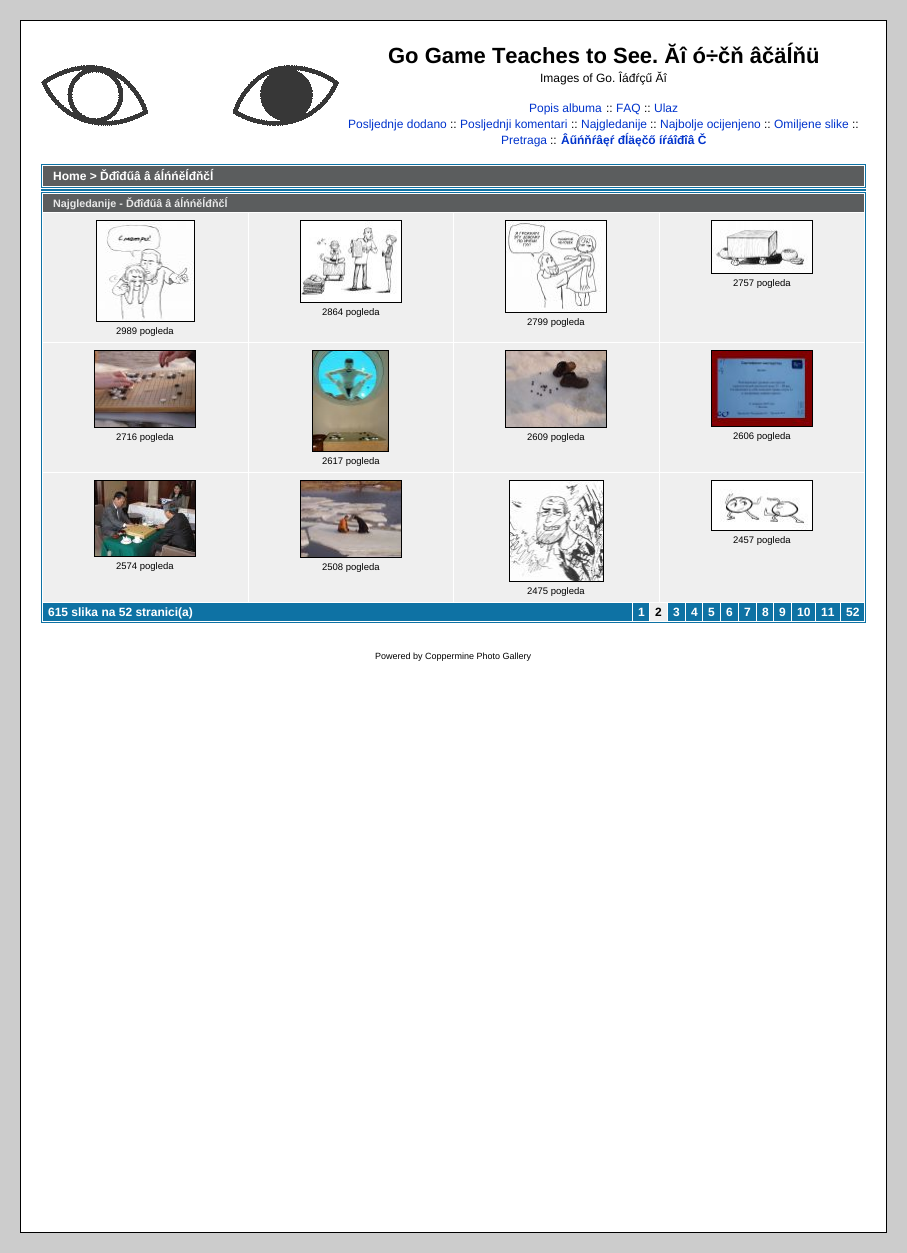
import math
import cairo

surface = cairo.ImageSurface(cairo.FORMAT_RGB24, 907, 1253)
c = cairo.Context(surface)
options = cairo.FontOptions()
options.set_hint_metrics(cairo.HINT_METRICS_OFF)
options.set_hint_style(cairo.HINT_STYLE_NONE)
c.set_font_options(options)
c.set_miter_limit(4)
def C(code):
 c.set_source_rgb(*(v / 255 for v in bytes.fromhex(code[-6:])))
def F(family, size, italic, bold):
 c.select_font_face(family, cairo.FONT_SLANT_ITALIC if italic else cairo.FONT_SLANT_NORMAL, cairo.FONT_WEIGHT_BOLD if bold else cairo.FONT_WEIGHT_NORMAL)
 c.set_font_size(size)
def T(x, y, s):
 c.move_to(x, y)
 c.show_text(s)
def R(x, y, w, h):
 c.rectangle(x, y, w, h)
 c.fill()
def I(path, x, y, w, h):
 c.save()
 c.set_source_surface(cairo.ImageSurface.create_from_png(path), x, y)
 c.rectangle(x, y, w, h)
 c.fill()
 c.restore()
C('cccccc')
c.paint()
C('ffffff')
c.rectangle(20.5,20.5,866,1212)
c.fill_preserve()
C('000000')
c.set_line_width(1)
c.stroke()
I('1.png',41,65,298,61)
F('Liberation Sans',22,0,1)
T(388,63,'Go Game Teaches to See. Ăî ó÷čň âčäĺňü')
F('Liberation Sans',12,0,0)
T(540,82,'Images of Go. Îáđŕçű Ăî')
C('0033cc')
T(529,112,'Popis albuma')
C('000000')
T(606,112,'::')
C('0033cc')
T(616,112,'FAQ')
C('000000')
T(644,112,'::')
C('0033cc')
T(654,112,'Ulaz')
T(348,128,'Posljednje dodano')
C('000000')
T(450,128,'::')
C('0033cc')
T(460,128,'Posljednji komentari')
C('000000')
T(571,128,'::')
C('0033cc')
T(581,128,'Najgledanije')
C('000000')
T(650,128,'::')
C('0033cc')
T(660,128,'Najbolje ocijenjeno')
C('000000')
T(764,128,'::')
C('0033cc')
T(774,128,'Omiljene slike')
C('000000')
T(852,128,'::')
C('0033cc')
T(501,144,'Pretraga')
C('000000')
T(550,144,'::')
F('Liberation Sans',12,0,1)
C('0033cc')
T(561,144,'Âűńňŕâęŕ đĺäęčő íŕáîđîâ Č')
c.rectangle(41.5,164.5,824,23)
C('0e72a4')
c.stroke()
C('5b5d5e')
R(43,166,821,20)
C('ffffff')
T(53,180,'Home > Ďđîđűâ â áĺńńěĺđňčĺ')
C('0e72a4')
R(41,189,825,2)
c.rectangle(41.5,192.5,824,430)
c.stroke()
C('5b5d5e')
R(43,194,821,18)
F('Liberation Sans',10.75,0,1)
C('e8e8e8')
T(53,207,'Najgledanije - Ďđîđűâ â áĺńńěĺđňčĺ')
C('efefef')
R(660,213,204,129)
c.rectangle(711.5,220.5,101,53)
C('000000')
c.stroke()
I('2.png',712,221,100,52)
F('Liberation Sans',9.5,0,0)
T(733,286,'2757 pogleda')
C('efefef')
R(249,213,204,129)
c.rectangle(300.5,220.5,101,82)
C('000000')
c.stroke()
I('3.png',301,221,100,81)
T(322,315,'2864 pogleda')
C('efefef')
R(454,213,205,129)
c.rectangle(505.5,220.5,101,92)
C('000000')
c.stroke()
I('4.png',506,221,100,91)
T(527,325,'2799 pogleda')
C('efefef')
R(43,213,205,129)
c.rectangle(96.5,220.5,98,101)
C('000000')
c.stroke()
I('5.png',97,221,97,100)
T(116,334,'2989 pogleda')
C('efefef')
R(43,343,205,129)
c.rectangle(94.5,350.5,101,77)
C('000000')
c.stroke()
I('6.png',95,351,100,76)
T(116,440,'2716 pogleda')
C('efefef')
R(454,343,205,129)
c.rectangle(505.5,350.5,101,77)
C('000000')
c.stroke()
I('7.png',506,351,100,76)
T(527,440,'2609 pogleda')
C('efefef')
R(660,343,204,129)
c.rectangle(711.5,350.5,101,76)
C('000000')
c.stroke()
I('8.png',712,351,100,75)
T(733,439,'2606 pogleda')
C('efefef')
R(249,343,204,129)
c.rectangle(312.5,350.5,76,101)
C('000000')
c.stroke()
I('9.png',313,351,75,100)
T(322,464,'2617 pogleda')
C('efefef')
R(660,473,204,129)
c.rectangle(711.5,480.5,101,50)
C('000000')
c.stroke()
I('10.png',712,481,100,49)
T(733,543,'2457 pogleda')
C('efefef')
R(43,473,205,129)
c.rectangle(94.5,480.5,101,76)
C('000000')
c.stroke()
I('11.png',95,481,100,75)
T(116,569,'2574 pogleda')
C('efefef')
R(249,473,204,129)
c.rectangle(300.5,480.5,101,77)
C('000000')
c.stroke()
I('12.png',301,481,100,76)
T(322,570,'2508 pogleda')
C('efefef')
R(454,473,205,129)
c.rectangle(509.5,480.5,94,101)
C('000000')
c.stroke()
I('13.png',510,481,93,100)
T(527,594,'2475 pogleda')
C('0e72a4')
R(43,603,589,18)
F('Liberation Sans',12,0,1)
C('ffffff')
T(48,616,'615 slika na 52 stranici(a)')
C('0e72a4')
R(633,603,16,18)
C('ffffff')
T(638,616,'1')
C('efefef')
R(650,603,17,18)
C('000000')
T(655,616,'2')
C('0e72a4')
R(668,603,17,18)
C('ffffff')
T(673,616,'3')
C('0e72a4')
R(686,603,16,18)
C('ffffff')
T(691,616,'4')
C('0e72a4')
R(703,603,17,18)
C('ffffff')
T(708,616,'5')
C('0e72a4')
R(721,603,17,18)
C('ffffff')
T(726,616,'6')
C('0e72a4')
R(739,603,17,18)
C('ffffff')
T(744,616,'7')
C('0e72a4')
R(757,603,16,18)
C('ffffff')
T(762,616,'8')
C('0e72a4')
R(774,603,17,18)
C('ffffff')
T(779,616,'9')
C('0e72a4')
R(792,603,23,18)
C('ffffff')
T(797,616,'10')
C('0e72a4')
R(816,603,24,18)
C('ffffff')
T(821,616,'11')
C('0e72a4')
R(841,603,23,18)
C('ffffff')
T(846,616,'52')
F('Liberation Sans',9,0,0)
C('000000')
T(375,659,'Powered by Coppermine Photo Gallery')
surface.write_to_png('o.png')
